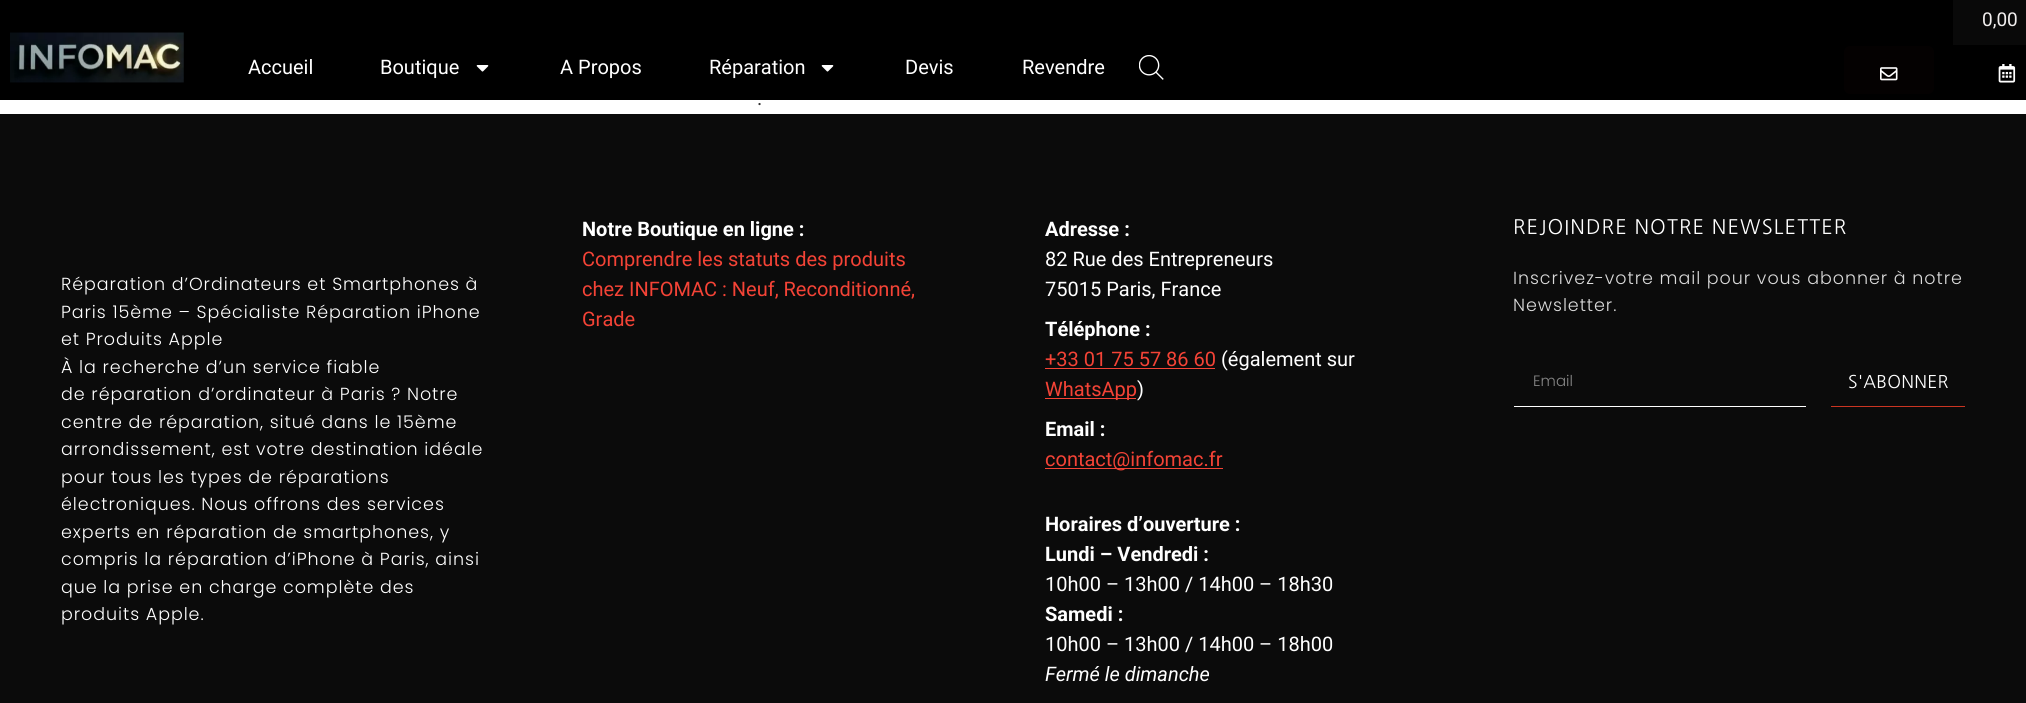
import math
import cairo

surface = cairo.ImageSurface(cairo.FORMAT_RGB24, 2026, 703)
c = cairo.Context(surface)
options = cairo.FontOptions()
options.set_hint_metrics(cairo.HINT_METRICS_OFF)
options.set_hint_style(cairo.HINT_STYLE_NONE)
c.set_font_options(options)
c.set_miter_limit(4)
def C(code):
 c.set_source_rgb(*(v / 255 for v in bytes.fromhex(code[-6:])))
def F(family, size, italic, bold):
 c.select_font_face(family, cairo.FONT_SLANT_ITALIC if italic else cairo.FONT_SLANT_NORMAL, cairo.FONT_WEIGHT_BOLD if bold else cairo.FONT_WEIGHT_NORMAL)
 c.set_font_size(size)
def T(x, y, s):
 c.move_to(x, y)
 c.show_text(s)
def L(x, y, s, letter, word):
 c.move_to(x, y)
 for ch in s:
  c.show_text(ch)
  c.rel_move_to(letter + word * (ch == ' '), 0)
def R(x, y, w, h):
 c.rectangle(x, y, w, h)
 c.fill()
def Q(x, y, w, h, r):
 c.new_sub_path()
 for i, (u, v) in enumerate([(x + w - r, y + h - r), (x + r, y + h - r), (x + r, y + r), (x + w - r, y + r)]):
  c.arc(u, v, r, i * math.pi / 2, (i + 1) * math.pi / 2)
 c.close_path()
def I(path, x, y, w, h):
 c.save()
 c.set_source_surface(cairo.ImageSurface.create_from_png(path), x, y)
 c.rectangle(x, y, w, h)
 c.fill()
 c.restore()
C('ffffff')
c.paint()
C('000000')
R(0,0,2026,100)
C('090909')
R(1953,0,73,45)
F('Roboto',19,0,0)
C('f1eeee')
T(1982,26,'0,00')
I('1.png',10,32,174,51)
F('Roboto',20,0,0)
C('ffffff')
T(248,74,'Accueil')
T(380,74,'Boutique')
I('2.png',476,65,13,7)
T(560,74,'A Propos')
T(709,74,'Réparation')
I('2.png',821,65,13,7)
T(905,74,'Devis')
T(1022,74,'Revendre')
I('3.png',1139,55,25,25)
C('040101')
Q(1844,46,90,48,6)
c.fill()
I('4.png',1880,67,18,14)
I('5.png',1998,64,18,19)
C('333333')
T(757,105,'.')
C('0b0b0b')
R(0,114,2026,589)
F('Poppins Light',17.5,0,0)
C('ffffff')
L(61,290,'Réparation d’Ordinateurs et Smartphones à',.95,0)
L(61,318,'Paris 15ème – Spécialiste Réparation iPhone',.95,0)
L(61,345,'et Produits Apple',.95,0)
L(61,373,'À la recherche d’un service fiable',.95,0)
L(61,400,'de réparation d’ordinateur à Paris ? Notre',.95,0)
L(61,428,'centre de réparation, situé dans le 15ème',.95,0)
L(61,455,'arrondissement, est votre destination idéale',.95,0)
L(61,483,'pour tous les types de réparations',.95,0)
L(61,510,'électroniques. Nous offrons des services',.95,0)
L(61,538,'experts en réparation de smartphones, y',.95,0)
L(61,565,'compris la réparation d’iPhone à Paris, ainsi',.95,0)
L(61,593,'que la prise en charge complète des',.95,0)
L(61,620,'produits Apple.',.95,0)
F('Roboto',20,0,1)
T(582,236,'Notre Boutique en ligne :')
F('Roboto',20,0,0)
C('f44336')
T(582,266,'Comprendre les statuts des produits')
T(582,296,'chez INFOMAC : Neuf, Reconditionné,')
T(582,326,'Grade')
F('Roboto',20,0,1)
C('ffffff')
T(1045,236,'Adresse :')
F('Roboto',20,0,0)
T(1045,266,'82 Rue des Entrepreneurs')
T(1045,296,'75015 Paris, France')
F('Roboto',20,0,1)
T(1045,336,'Téléphone :')
F('Roboto',20,0,0)
C('f44336')
T(1045,366,'+33 01 75 57 86 60')
R(1045,368,170,1)
C('ffffff')
T(1221,366,'(également sur')
C('f44336')
R(1045,398,91,1)
T(1045,396,'WhatsApp')
C('ffffff')
T(1137,396,')')
F('Roboto',20,0,1)
T(1045,436,'Email :')
C('f44336')
R(1045,468,178,1)
F('Roboto',20,0,0)
T(1045,466,'contact@infomac.fr')
F('Roboto',20,0,1)
C('ffffff')
T(1045,531,'Horaires d’ouverture :')
T(1045,561,'Lundi – Vendredi :')
F('Roboto',20,0,0)
T(1045,591,'10h00 – 13h00 / 14h00 – 18h30')
F('Roboto',20,0,1)
T(1045,621,'Samedi :')
F('Roboto',20,0,0)
T(1045,651,'10h00 – 13h00 / 14h00 – 18h00')
F('Roboto',20,1,0)
T(1045,681,'Fermé le dimanche')
F('NanumGothic',20,0,0)
L(1513,234,'REJOINDRE NOTRE NEWSLETTER',1.1,0)
F('Poppins Light',17.5,0,0)
C('dadada')
L(1513,284,'Inscrivez-votre mail pour vous abonner à notre',.95,0)
L(1513,311,'Newsletter.',.95,0)
C('ffffff')
R(1514,406,292,1)
F('Poppins Light',15,0,0)
C('878787')
T(1533,386,'Email')
C('cb3522')
R(1831,406,134,1)
F('NanumGothic',17.5,0,0)
C('ffffff')
L(1848,388,'S\'ABONNER',.25,0)
surface.write_to_png('o.png')
